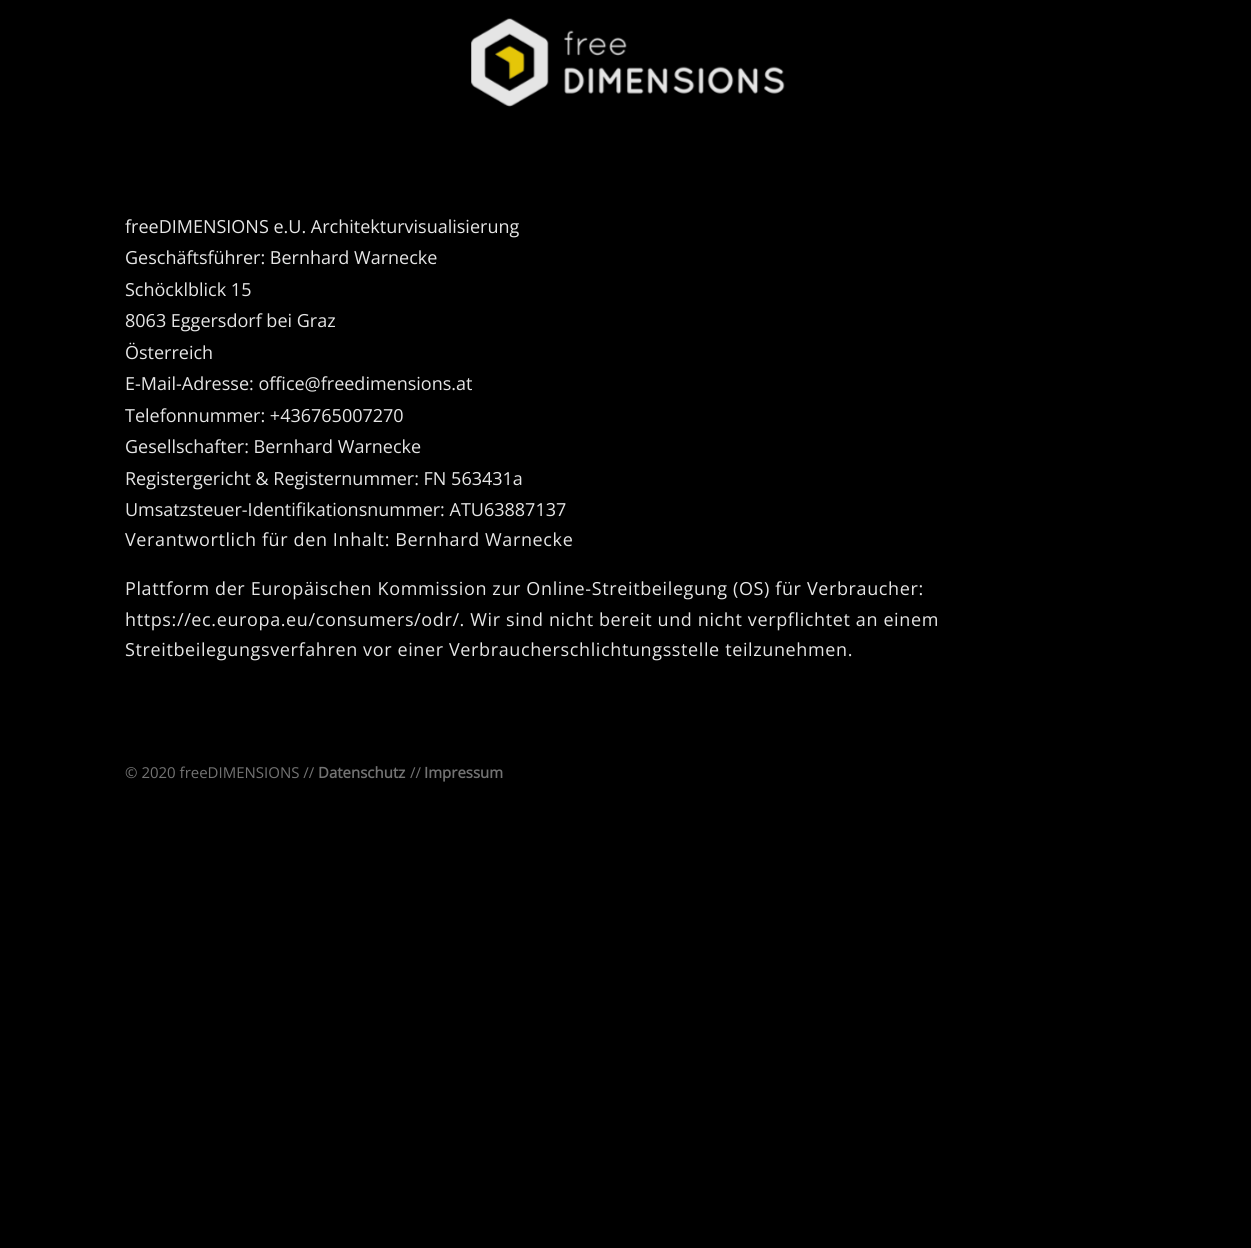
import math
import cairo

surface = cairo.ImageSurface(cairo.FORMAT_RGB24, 1251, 1248)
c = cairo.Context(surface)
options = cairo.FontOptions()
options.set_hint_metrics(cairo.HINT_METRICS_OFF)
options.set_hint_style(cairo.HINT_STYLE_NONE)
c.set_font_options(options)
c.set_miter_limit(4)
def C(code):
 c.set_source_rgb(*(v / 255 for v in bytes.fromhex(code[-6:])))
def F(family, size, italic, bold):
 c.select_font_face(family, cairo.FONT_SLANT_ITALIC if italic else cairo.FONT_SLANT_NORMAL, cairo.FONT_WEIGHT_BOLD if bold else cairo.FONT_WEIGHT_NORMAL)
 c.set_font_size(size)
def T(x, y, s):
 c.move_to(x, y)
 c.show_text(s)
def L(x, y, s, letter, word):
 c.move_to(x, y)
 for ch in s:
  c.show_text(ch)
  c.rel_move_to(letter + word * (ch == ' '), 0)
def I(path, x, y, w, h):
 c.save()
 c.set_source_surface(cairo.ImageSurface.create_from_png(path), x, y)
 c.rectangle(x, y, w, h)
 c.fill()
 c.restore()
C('000000')
c.paint()
I('1.png',471,18,314,89)
F('Open Sans',18,0,0)
C('e6e6e6')
T(125,233,'freeDIMENSIONS e.U. Architekturvisualisierung')
T(125,264,'Geschäftsführer: Bernhard Warnecke')
T(125,296,'Schöcklblick 15')
T(125,327,'8063 Eggersdorf bei Graz')
T(125,359,'Österreich')
T(125,390,'E-Mail-Adresse: office@freedimensions.at')
T(125,422,'Telefonnummer: +436765007270')
T(125,453,'Gesellschafter: Bernhard Warnecke')
T(125,485,'Registergericht & Registernummer: FN 563431a')
T(125,516,'Umsatzsteuer-Identifikationsnummer: ATU63887137')
L(125,546,'Verantwortlich für den Inhalt: Bernhard Warnecke',.62,0)
L(125,595,'Plattform der Europäischen Kommission zur Online-Streitbeilegung (OS) für Verbraucher:',.62,0)
L(125,626,'https://ec.europa.eu/consumers/odr/. Wir sind nicht bereit und nicht verpflichtet an einem',.62,0)
L(125,656,'Streitbeilegungsverfahren vor einer Verbraucherschlichtungsstelle teilzunehmen.',.62,0)
F('Open Sans',15,0,0)
C('737373')
T(125,778,'© 2020 freeDIMENSIONS //')
F('Open Sans',15,0,1)
T(318,778,'Datenschutz')
F('Open Sans',15,0,0)
T(410,778,'//')
F('Open Sans',15,0,1)
T(424,778,'Impressum')
surface.write_to_png('o.png')
